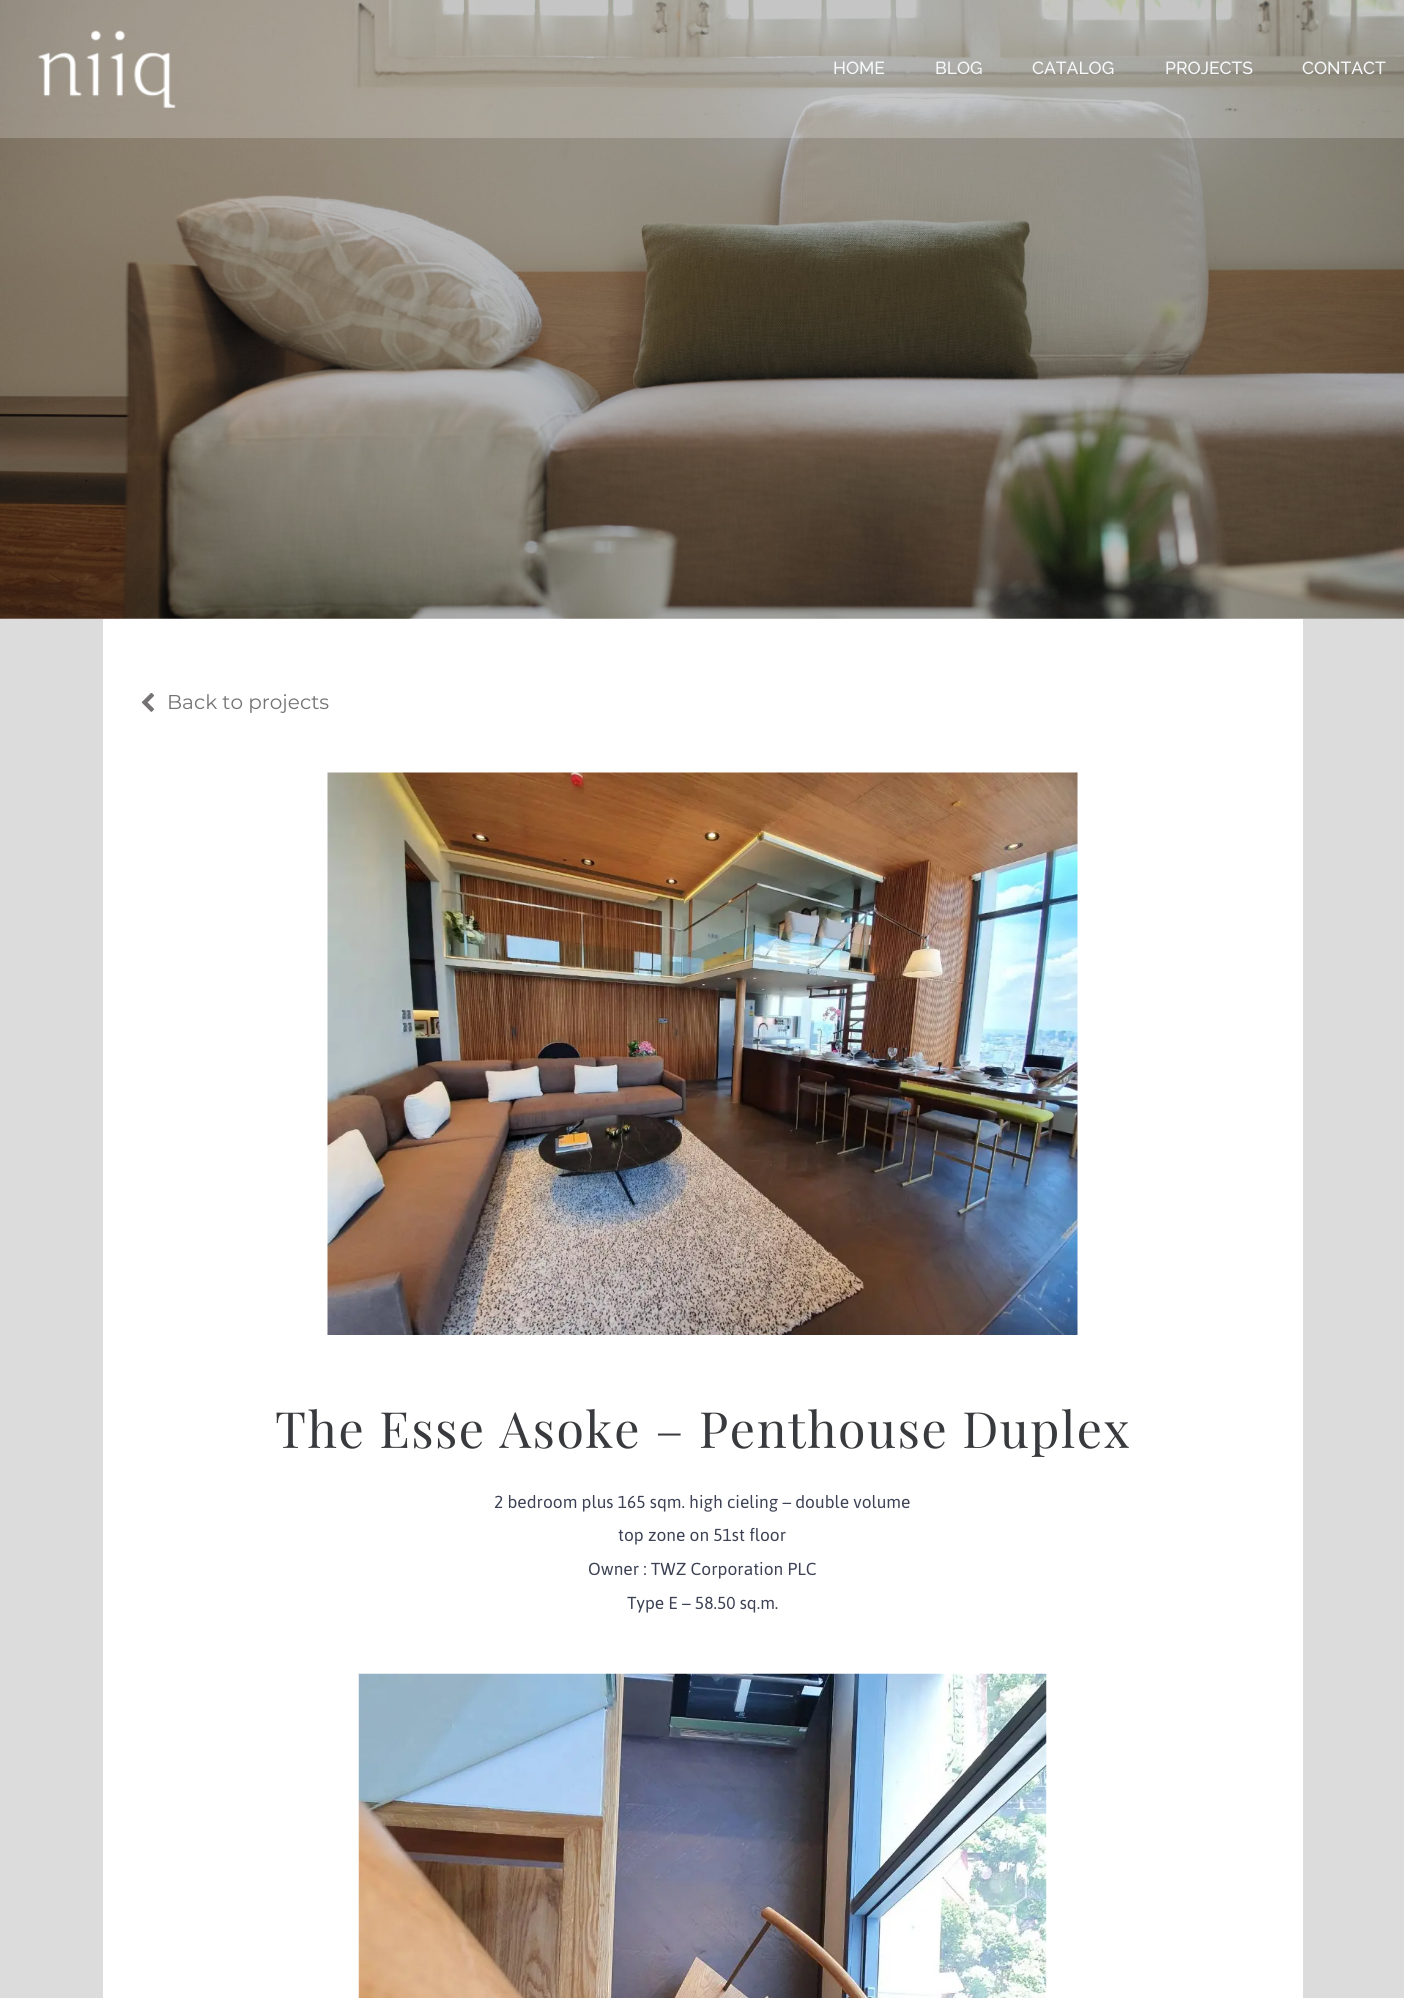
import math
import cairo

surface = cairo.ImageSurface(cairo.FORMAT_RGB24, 1404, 1998)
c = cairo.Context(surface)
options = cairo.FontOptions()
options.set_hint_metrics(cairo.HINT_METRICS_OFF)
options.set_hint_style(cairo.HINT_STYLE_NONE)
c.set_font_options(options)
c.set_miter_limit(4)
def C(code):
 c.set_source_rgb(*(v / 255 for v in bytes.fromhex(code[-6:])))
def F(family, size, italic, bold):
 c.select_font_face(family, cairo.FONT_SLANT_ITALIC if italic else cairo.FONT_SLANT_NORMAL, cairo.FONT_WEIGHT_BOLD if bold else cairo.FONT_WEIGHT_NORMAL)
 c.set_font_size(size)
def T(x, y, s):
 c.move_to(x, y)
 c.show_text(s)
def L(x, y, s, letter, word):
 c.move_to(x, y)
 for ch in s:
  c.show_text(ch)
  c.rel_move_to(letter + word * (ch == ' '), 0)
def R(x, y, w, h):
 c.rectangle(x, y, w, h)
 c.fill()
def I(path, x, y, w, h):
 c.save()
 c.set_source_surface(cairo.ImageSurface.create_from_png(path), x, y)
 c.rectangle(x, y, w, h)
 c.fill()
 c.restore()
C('ffffff')
c.paint()
I('1.png',0,0,1404,619)
c.set_source_rgba(1,1,1,0.2)
R(0,0,1404,138)
I('2.png',38,30,138,78)
F('Raleway Medium',17.5,0,0)
C('f6f8fa')
T(833,74,'HOME')
T(935,74,'BLOG')
T(1032,74,'CATALOG')
T(1165,74,'PROJECTS')
T(1302,74,'CONTACT')
C('dcdcdc')
R(0,619,1404,1379)
C('ffffff')
R(103,619,1200,1379)
I('3.png',141,693,14,19)
F('Montserrat',20,0,0)
C('757373')
T(167,709,'Back to projects')
I('4.png',327,772,751,563)
F('Playfair Display',50,0,0)
C('393a3d')
L(275,1448,'The Esse Asoke – Penthouse Duplex',1.5,0)
F('Jaldi',20,0,0)
C('3c4154')
T(494,1508,'2 bedroom plus 165 sqm. high cieling – double volume')
T(618,1541,'top zone on 51st floor')
T(588,1575,'Owner : TWZ Corporation PLC')
T(627,1609,'Type E – 58.50 sq.m.')
I('5.png',358,1673,689,325)
surface.write_to_png('o.png')
